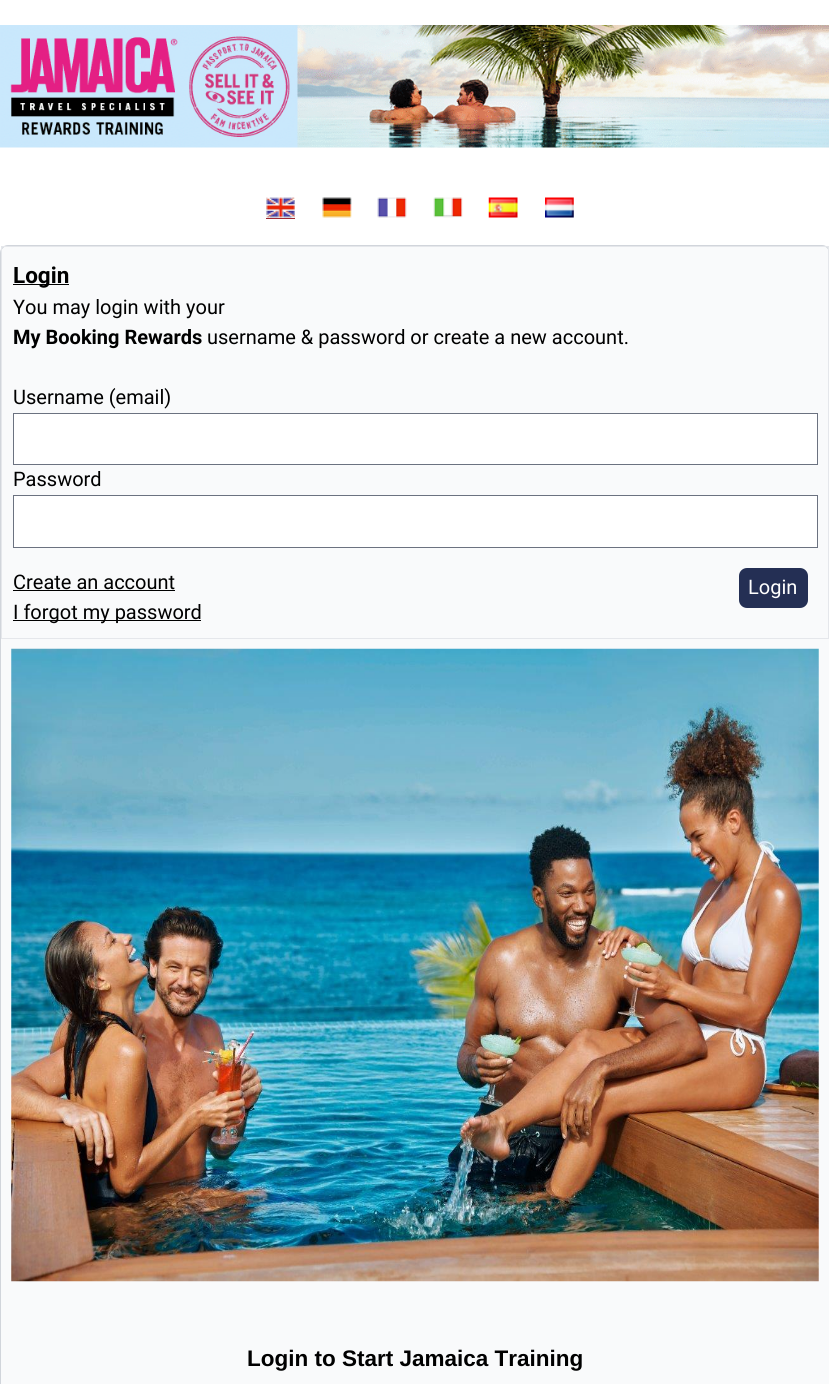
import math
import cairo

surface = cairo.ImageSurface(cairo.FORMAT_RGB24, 829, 1384)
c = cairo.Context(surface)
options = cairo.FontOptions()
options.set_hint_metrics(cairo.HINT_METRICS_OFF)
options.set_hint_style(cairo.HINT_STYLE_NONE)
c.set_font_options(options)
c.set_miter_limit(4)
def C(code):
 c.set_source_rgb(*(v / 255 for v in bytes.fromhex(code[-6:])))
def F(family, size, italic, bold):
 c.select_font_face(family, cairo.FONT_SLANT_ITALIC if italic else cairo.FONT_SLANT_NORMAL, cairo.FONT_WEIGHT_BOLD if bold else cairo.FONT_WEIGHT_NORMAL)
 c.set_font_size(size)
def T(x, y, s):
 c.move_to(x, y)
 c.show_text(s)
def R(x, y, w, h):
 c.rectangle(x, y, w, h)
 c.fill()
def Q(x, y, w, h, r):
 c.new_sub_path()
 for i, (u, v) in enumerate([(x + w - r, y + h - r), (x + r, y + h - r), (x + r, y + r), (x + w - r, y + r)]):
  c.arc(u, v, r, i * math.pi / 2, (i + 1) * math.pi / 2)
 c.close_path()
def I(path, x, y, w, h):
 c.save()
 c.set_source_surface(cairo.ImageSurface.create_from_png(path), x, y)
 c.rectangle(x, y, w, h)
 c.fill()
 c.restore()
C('ffffff')
c.paint()
I('1.png',0,25,829,123)
C('9d2932')
R(266,218,29,1)
I('2.png',266,197,29,21)
I('3.png',322,197,30,21)
I('4.png',377,197,30,21)
I('5.png',433,197,30,21)
I('6.png',488,197,30,21)
I('7.png',545,197,29,21)
C('f9fafb')
Q(.5,245.5,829,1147,7.5)
c.fill_preserve()
C('d1d5db')
c.set_line_width(1)
c.stroke()
c.rectangle(1.5,246.5,827,392)
C('e5e7eb')
c.stroke()
C('000000')
R(13,284,56,1)
F('Roboto',22.5,0,1)
T(13,283,'Login')
F('Roboto',20,0,0)
T(13,314,'You may login with your')
F('Roboto',20,0,1)
T(13,344,'My Booking Rewards')
F('Roboto',20,0,0)
T(207,344,'username & password or create a new account.')
T(13,404,'Username (email)')
C('ffffff')
c.rectangle(13.5,413.5,804,51)
c.fill_preserve()
C('6b7280')
c.stroke()
C('000000')
T(13,486,'Password')
C('ffffff')
c.rectangle(13.5,495.5,804,52)
c.fill_preserve()
C('6b7280')
c.stroke()
C('000000')
T(13,589,'Create an account')
R(13,590,162,1)
C('242f54')
Q(739,568,69,40,8)
c.fill()
C('ffffff')
T(748,594,'Login')
C('000000')
R(13,620,188,1)
T(13,619,'I forgot my password')
I('8.png',11,648,808,634)
F('Liberation Sans',22.5,0,1)
T(247,1366,'Login to Start Jamaica Training')
surface.write_to_png('o.png')
